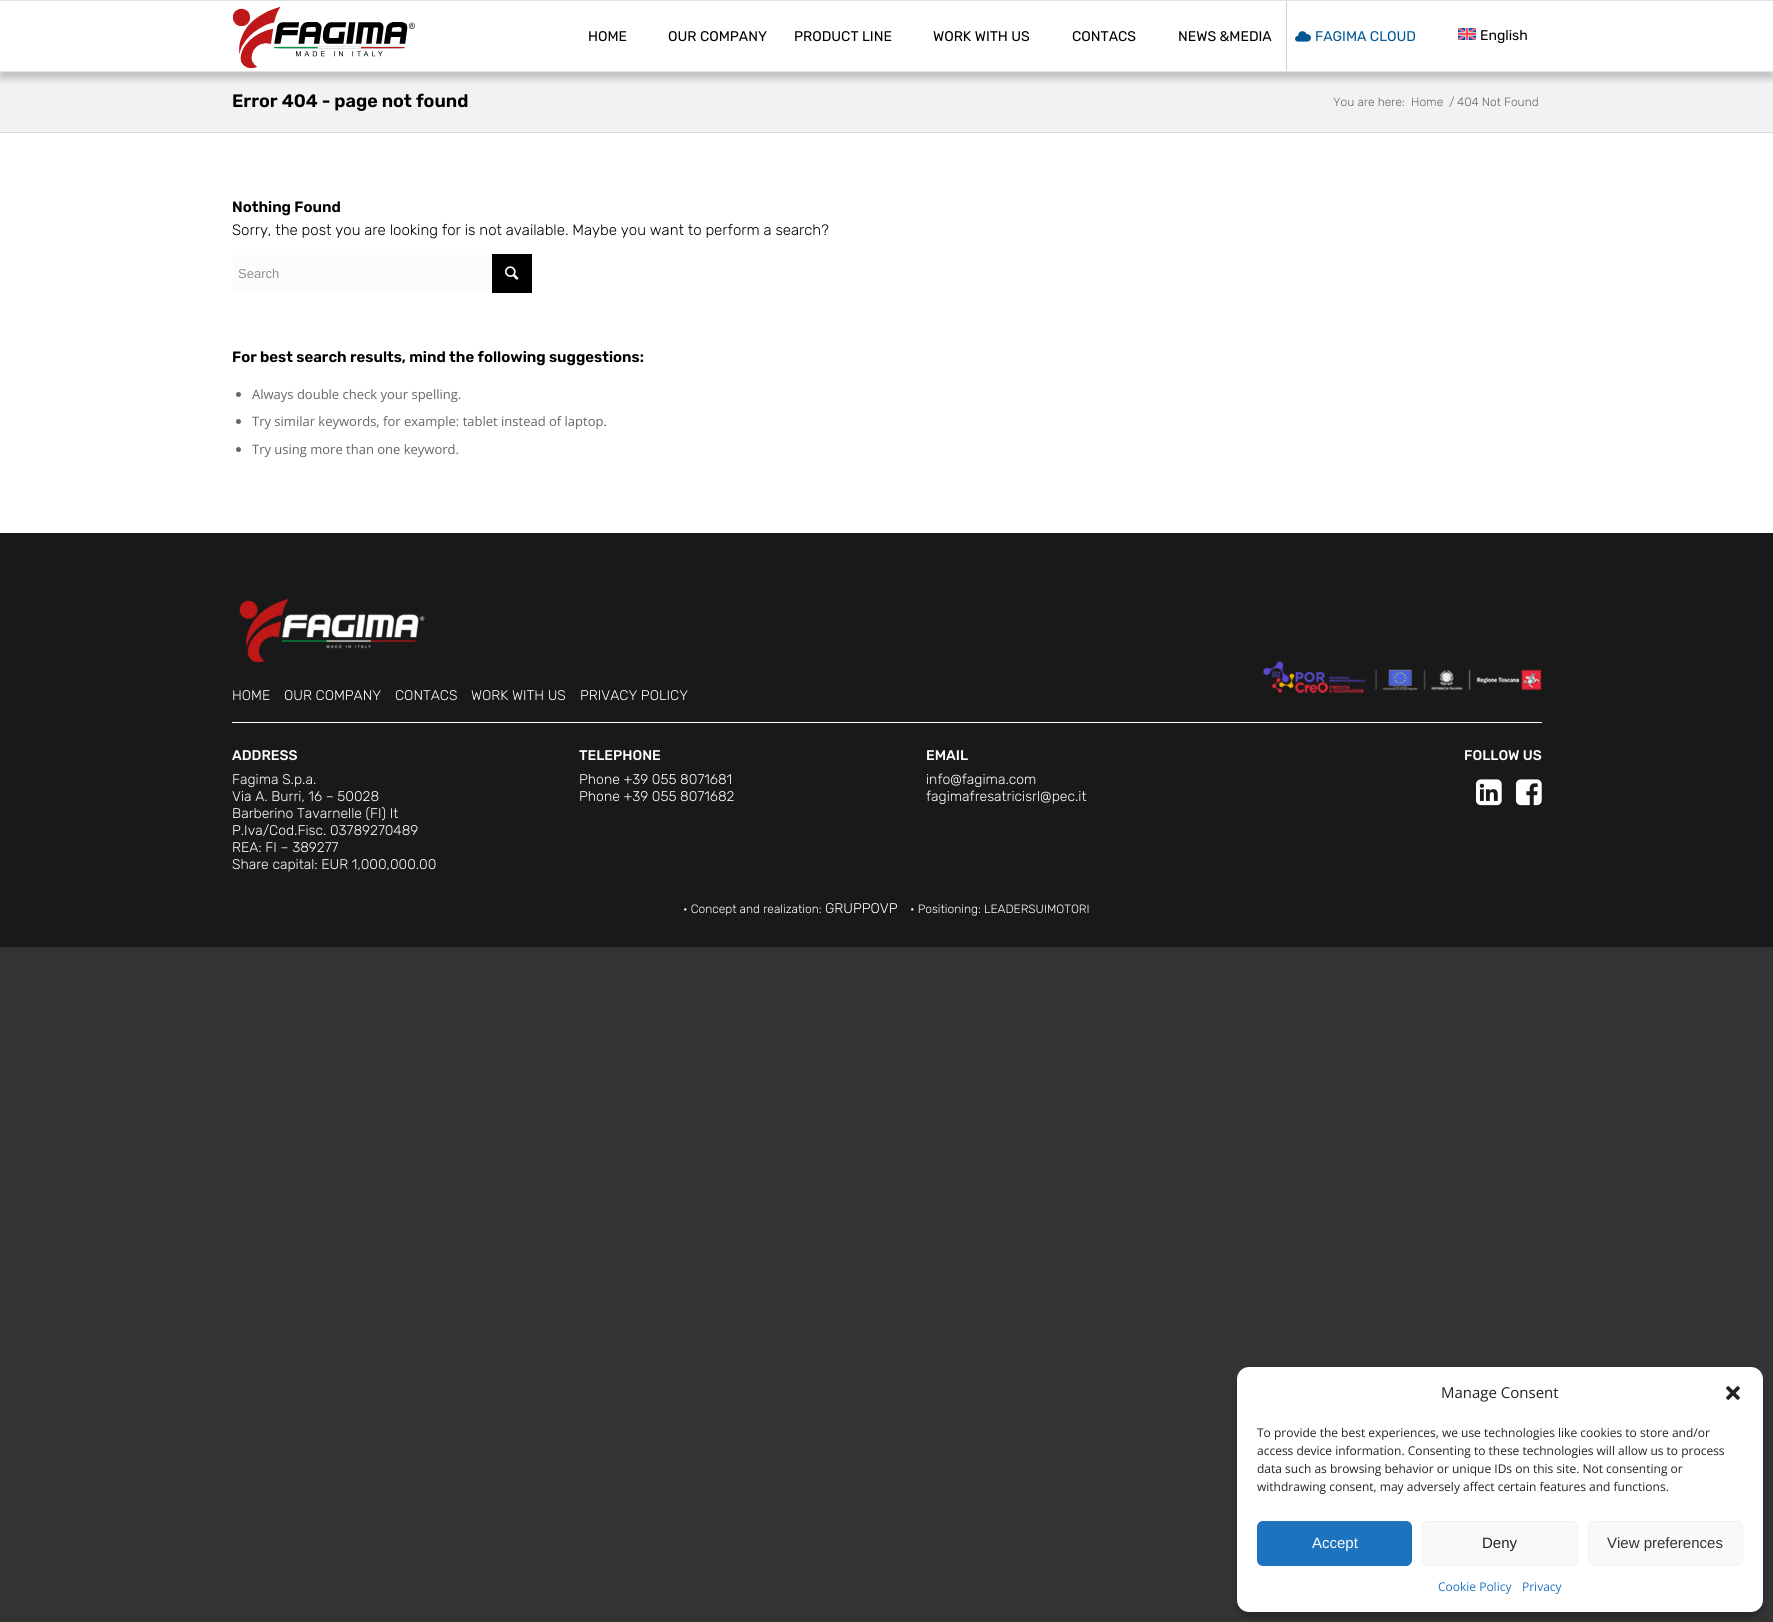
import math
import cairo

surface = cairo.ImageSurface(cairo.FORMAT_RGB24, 1773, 1622)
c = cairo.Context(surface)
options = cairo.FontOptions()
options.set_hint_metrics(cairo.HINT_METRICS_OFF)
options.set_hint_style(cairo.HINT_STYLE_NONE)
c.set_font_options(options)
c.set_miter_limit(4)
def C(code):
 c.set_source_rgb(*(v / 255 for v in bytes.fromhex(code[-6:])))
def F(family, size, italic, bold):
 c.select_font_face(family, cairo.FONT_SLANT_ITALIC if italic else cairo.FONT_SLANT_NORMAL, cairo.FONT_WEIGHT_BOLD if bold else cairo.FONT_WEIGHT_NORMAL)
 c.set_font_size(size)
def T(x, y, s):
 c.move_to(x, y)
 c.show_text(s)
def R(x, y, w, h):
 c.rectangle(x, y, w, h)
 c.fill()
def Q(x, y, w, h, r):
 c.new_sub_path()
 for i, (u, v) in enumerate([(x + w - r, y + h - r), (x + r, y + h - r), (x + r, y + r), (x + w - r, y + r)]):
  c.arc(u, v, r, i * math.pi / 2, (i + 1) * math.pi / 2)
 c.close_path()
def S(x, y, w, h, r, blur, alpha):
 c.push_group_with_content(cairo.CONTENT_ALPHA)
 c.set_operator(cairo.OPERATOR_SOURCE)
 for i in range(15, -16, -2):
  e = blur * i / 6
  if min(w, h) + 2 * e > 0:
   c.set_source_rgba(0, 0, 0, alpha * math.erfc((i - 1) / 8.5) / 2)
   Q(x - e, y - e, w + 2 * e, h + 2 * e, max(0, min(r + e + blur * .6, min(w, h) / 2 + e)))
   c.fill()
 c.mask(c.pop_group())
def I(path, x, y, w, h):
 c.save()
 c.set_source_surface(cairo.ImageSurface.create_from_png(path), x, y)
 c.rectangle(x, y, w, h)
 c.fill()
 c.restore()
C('333333')
c.paint()
C('ffffff')
R(0,133,1773,400)
R(0,1,1773,69)
C('f2f2f2')
R(0,72,1773,60)
C('fefefe')
R(0,70,1773,1)
c.save()
c.rectangle(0,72,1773,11)
c.clip()
C('000000')
S(0,7,1773,72,0,3.5,.2)
c.restore()
C('e1e1e1')
R(0,0,1773,1)
R(0,71,1773,1)
I('1.png',232,7,183,61)
F('Rubik',14,0,0)
C('000000')
T(588,41,'HOME')
T(668,41,'OUR COMPANY')
T(794,41,'PRODUCT LINE')
T(933,41,'WORK WITH US')
T(1072,41,'CONTACS')
T(1178,41,'NEWS &MEDIA')
C('d0d0d0')
R(1286,1,1,70)
I('2.png',1295,31,16,11)
C('035894')
T(1315,41,'FAGIMA CLOUD')
I('3.png',1458,28,18,12)
C('000000')
T(1480,40,'English')
F('Rubik SemiBold',18,0,0)
T(232,107,'Error 404 - page not found')
F('Rubik Light',12,0,0)
C('666666')
T(1333,106,'You are here:')
T(1411,106,'Home')
T(1449,106,'/')
T(1457,106,'404 Not Found')
C('d8d8d8')
R(0,132,1773,1)
F('Rubik SemiBold',15,0,0)
C('000000')
T(232,212,'Nothing Found')
F('Rubik Light',15,0,0)
T(232,235,'Sorry, the post you are looking for is not available. Maybe you want to perform a search?')
C('fcfcfc')
R(233,255,259,37)
F('Liberation Sans',13,0,0)
C('919191')
T(238,278,'Search')
C('000000')
R(492,254,40,39)
I('4.png',505,266,14,14)
F('Rubik SemiBold',15,0,0)
T(232,362,'For best search results, mind the following suggestions:')
C('666666')
c.new_path()
c.arc(238.5,394.5,2.5,0,2 * math.pi)
c.fill()
F('Open Sans',13,0,0)
T(252,399,'Always double check your spelling.')
c.new_path()
c.arc(238.5,421.5,2.5,0,2 * math.pi)
c.fill()
T(252,426,'Try similar keywords, for example: tablet instead of laptop.')
c.new_path()
c.arc(238.5,449.5,2.5,0,2 * math.pi)
c.fill()
T(252,454,'Try using more than one keyword.')
C('1a1919')
R(0,533,1773,414)
I('5.png',239,598,186,65)
I('6.png',1263,661,279,32)
F('Rubik Light',14,0,0)
C('ffffff')
T(232,700,'HOME')
T(284,700,'OUR COMPANY')
T(395,700,'CONTACS')
T(471,700,'WORK WITH US')
T(580,700,'PRIVACY POLICY')
R(232,722,1310,1)
F('Rubik Medium',14,0,0)
T(232,760,'ADDRESS')
F('Rubik Light',14,0,0)
T(232,784,'Fagima S.p.a.')
T(232,801,'Via A. Burri, 16 – 50028')
T(232,818,'Barberino Tavarnelle (FI) It')
T(232,835,'P.Iva/Cod.Fisc. 03789270489')
T(232,852,'REA: FI – 389277')
T(232,869,'Share capital: EUR 1,000,000.00')
F('Rubik Medium',14,0,0)
T(579,760,'TELEPHONE')
F('Rubik Light',14,0,0)
T(579,784,'Phone +39 055 8071681')
T(579,801,'Phone +39 055 8071682')
F('Rubik Medium',14,0,0)
T(926,760,'EMAIL')
F('Rubik Light',14,0,0)
T(926,784,'info@fagima.com')
T(926,801,'fagimafresatricisrl@pec.it')
F('Rubik Medium',14,0,0)
T(1464,760,'FOLLOW US')
I('7.png',1476,779,26,27)
I('8.png',1516,779,26,27)
F('Rubik Light',12,0,0)
T(683,913,'• Concept and realization:')
F('Rubik Light',14,0,0)
T(825,913,'GRUPPOVP')
F('Rubik Light',12,0,0)
T(910,913,'• Positioning: LEADERSUIMOTORI')
C('000000')
S(1237,1373,526,245,12,3,.23)
C('ffffff')
Q(1237,1367,526,245,12)
c.fill()
F('Open Sans',15,0,0)
C('222222')
T(1441,1398,'Manage Consent')
I('9.png',1726,1386,14,14)
F('Open Sans',12,0,0)
T(1257,1437,'To provide the best experiences, we use technologies like cookies to store and/or')
T(1257,1455,'access device information. Consenting to these technologies will allow us to process')
T(1257,1473,'data such as browsing behavior or unique IDs on this site. Not consenting or')
T(1257,1491,'withdrawing consent, may adversely affect certain features and functions.')
C('1e73be')
Q(1257.5,1521.5,154,44,5.5)
c.fill_preserve()
c.set_line_width(1)
c.stroke()
F('Liberation Sans',15,0,0)
C('ffffff')
T(1312,1548,'Accept')
C('f9f9f9')
Q(1422.5,1521.5,155,44,5.5)
c.fill_preserve()
C('f2f2f2')
c.stroke()
C('222222')
T(1482,1548,'Deny')
C('f9f9f9')
Q(1588.5,1521.5,154,44,5.5)
c.fill_preserve()
C('f2f2f2')
c.stroke()
C('333333')
T(1607,1548,'View preferences')
F('Open Sans',12,0,0)
C('1e73be')
T(1438,1591,'Cookie Policy')
T(1522,1591,'Privacy')
surface.write_to_png('o.png')
